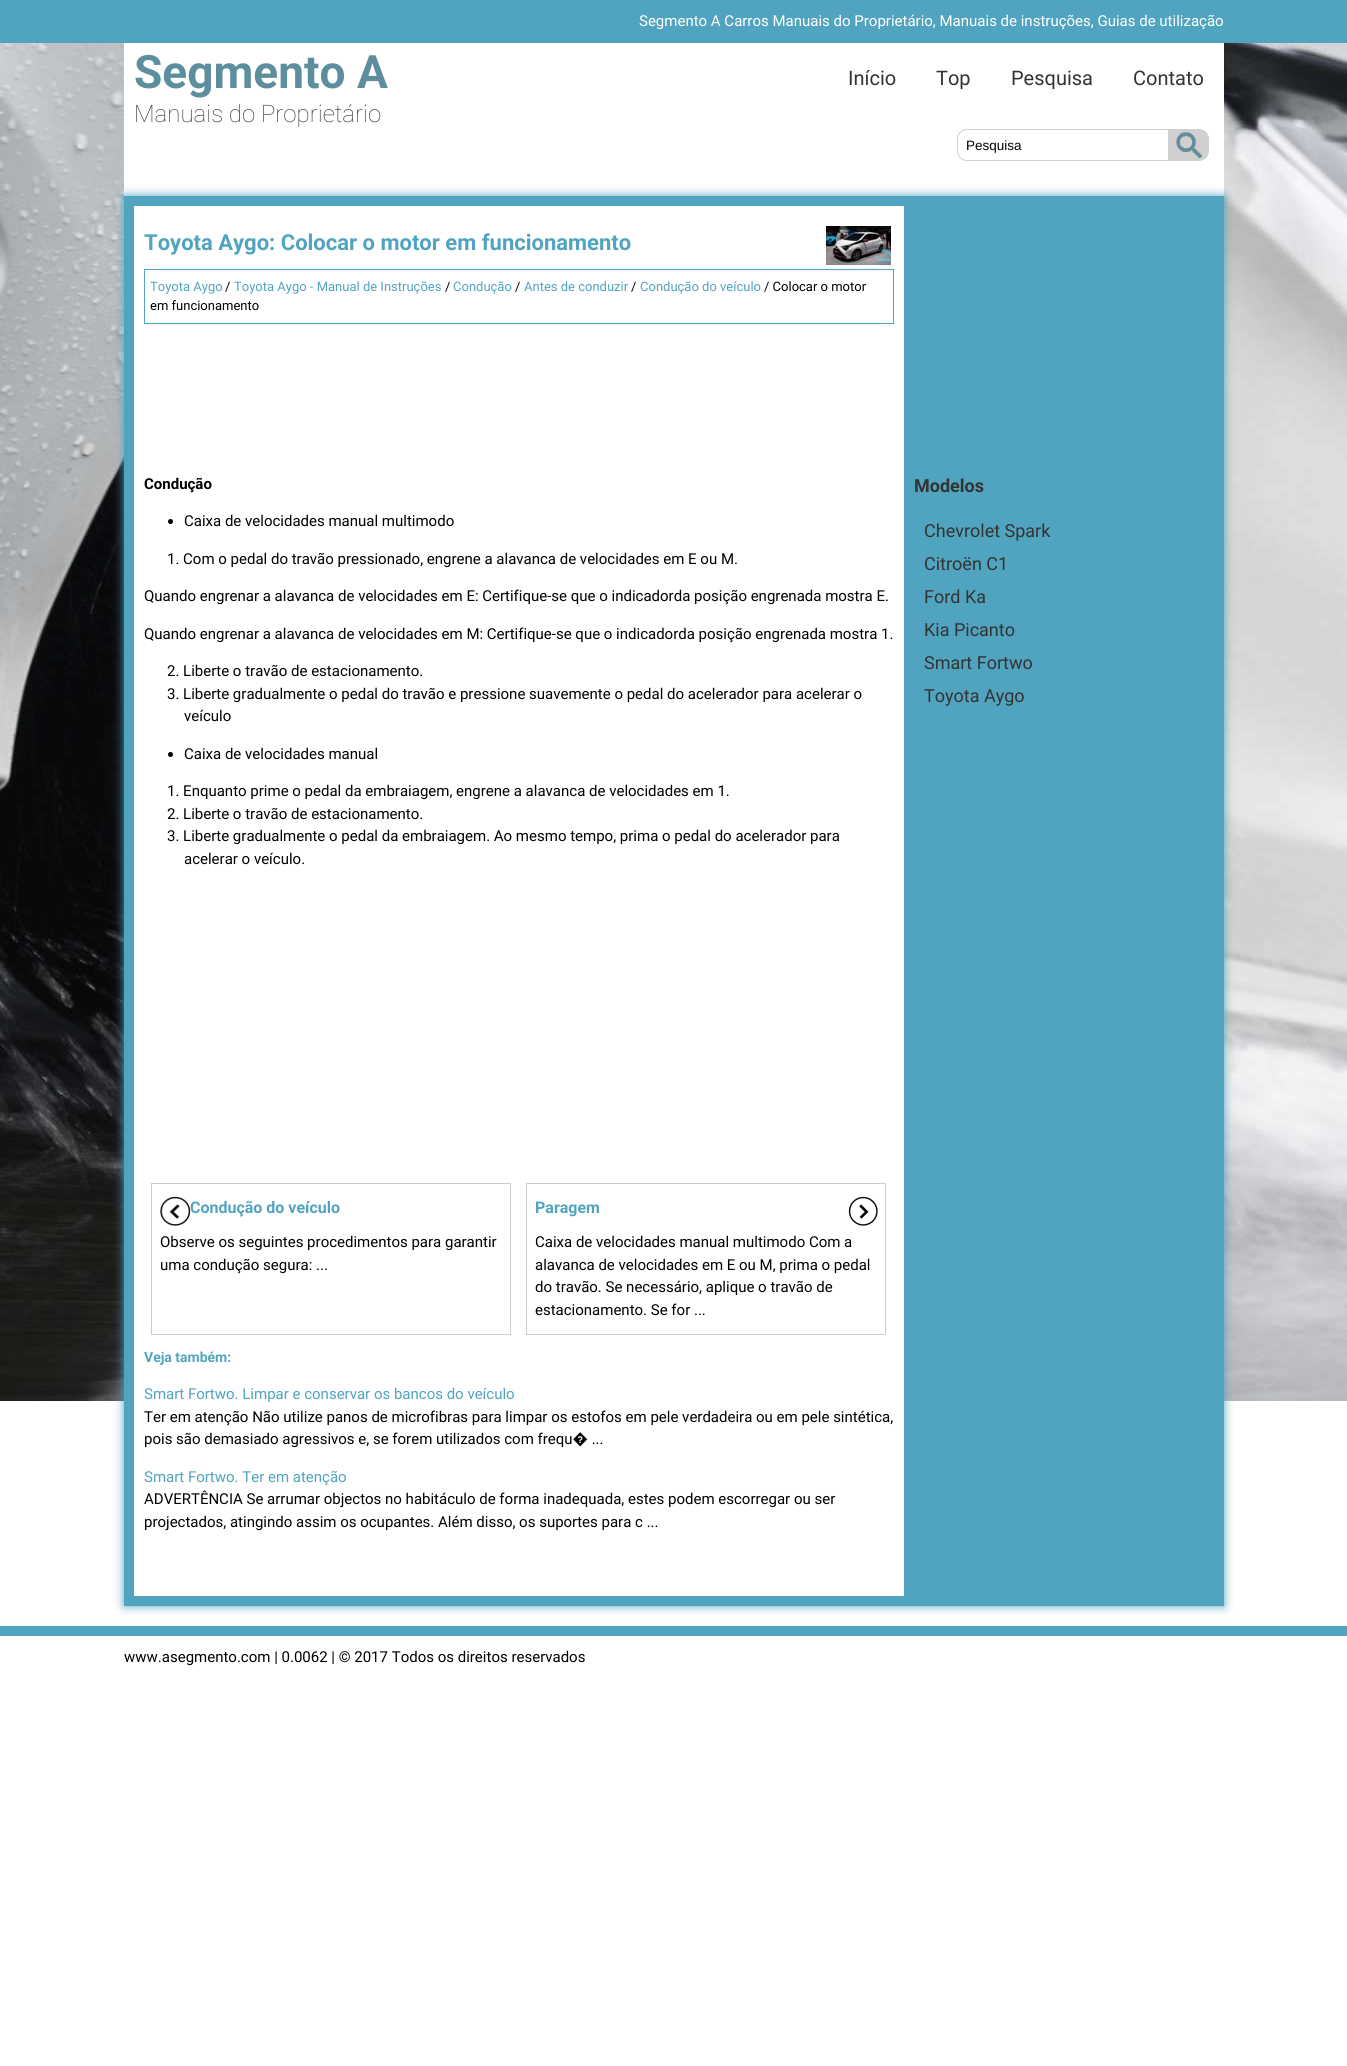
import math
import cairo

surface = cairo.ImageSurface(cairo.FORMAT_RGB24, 1347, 2066)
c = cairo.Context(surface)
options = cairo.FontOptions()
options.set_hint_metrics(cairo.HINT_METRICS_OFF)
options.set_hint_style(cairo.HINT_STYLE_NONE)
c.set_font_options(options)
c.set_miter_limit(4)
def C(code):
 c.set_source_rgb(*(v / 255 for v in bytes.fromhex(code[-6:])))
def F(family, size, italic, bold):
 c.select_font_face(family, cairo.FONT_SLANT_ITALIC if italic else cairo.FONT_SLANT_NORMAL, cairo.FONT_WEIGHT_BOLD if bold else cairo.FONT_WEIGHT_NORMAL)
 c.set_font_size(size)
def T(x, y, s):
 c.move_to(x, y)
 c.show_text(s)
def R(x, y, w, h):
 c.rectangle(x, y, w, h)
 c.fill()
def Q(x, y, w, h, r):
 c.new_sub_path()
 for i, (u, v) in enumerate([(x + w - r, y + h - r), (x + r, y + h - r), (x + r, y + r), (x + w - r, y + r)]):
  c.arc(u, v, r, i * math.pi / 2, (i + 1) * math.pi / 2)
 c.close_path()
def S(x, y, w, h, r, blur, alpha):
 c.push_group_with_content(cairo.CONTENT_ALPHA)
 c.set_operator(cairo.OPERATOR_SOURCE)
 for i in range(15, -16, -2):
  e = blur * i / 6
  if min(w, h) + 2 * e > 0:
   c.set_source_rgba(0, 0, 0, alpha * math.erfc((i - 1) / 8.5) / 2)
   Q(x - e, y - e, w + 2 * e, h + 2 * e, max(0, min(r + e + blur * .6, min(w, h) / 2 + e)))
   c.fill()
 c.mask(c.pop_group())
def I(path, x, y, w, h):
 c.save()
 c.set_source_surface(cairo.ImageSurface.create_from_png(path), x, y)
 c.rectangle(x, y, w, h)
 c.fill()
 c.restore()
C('ffffff')
c.paint()
C('51a4bf')
R(0,0,1347,43)
F('Roboto',15,0,0)
C('ffffff')
T(639,26,'Segmento A Сarros Manuais do Proprietário, Manuais de instruções, Guias de utilização')
I('1.png',0,43,1347,1358)
R(124,43,1100,153)
F('Roboto',46,0,1)
C('5c8e9e')
T(134,88,'Segmento A')
F('Roboto Thin',24,0,0)
C('333333')
T(134,122,'Manuais do Proprietário')
F('Roboto',20,0,0)
T(848,85,'Início')
T(936,85,'Top')
T(1011,85,'Pesquisa')
T(1133,85,'Contato')
Q(957.5,129.5,251,31,9.5)
C('d0d0d0')
c.set_line_width(1)
c.stroke()
F('Liberation Sans',13.5,0,0)
C('000000')
T(966,150,'Pesquisa')
C('d0d0d0')
c.new_path()
c.move_to(1168,130)
c.line_to(1200,130)
c.curve_to(1204.5,130,1208,133.5,1208,138)
c.line_to(1208,152)
c.curve_to(1208,156.5,1204.5,160,1200,160)
c.line_to(1168,160)
c.close_path()
c.fill()
I('2.png',1176,132,26,26)
C('51a4bf')
S(124,196,1100,1410,0,5,1)
C('51a4bf')
R(124,196,1100,1410)
C('ffffff')
R(134,206,770,1390)
F('Roboto',22,0,1)
C('51a4bf')
T(144,250,'Toyota Aygo: Colocar o motor em funcionamento')
I('3.png',826,226,65,39)
c.rectangle(144.5,269.5,749,54)
c.stroke()
F('Roboto',13,0,0)
T(150,291,'Toyota Aygo')
C('000000')
T(225,291,'/')
C('51a4bf')
T(234,291,'Toyota Aygo - Manual de Instruções')
C('000000')
T(445,291,'/')
C('51a4bf')
T(453,291,'Condução')
C('000000')
T(515,291,'/')
C('51a4bf')
T(524,291,'Antes de conduzir')
C('000000')
T(631,291,'/')
C('51a4bf')
T(640,291,'Condução do veículo')
C('000000')
T(764,291,'/ Colocar o motor')
T(150,310,'em funcionamento')
F('Roboto',15,0,1)
T(144,489,'Condução')
c.new_path()
c.arc(170.5,521.5,2.5,0,2 * math.pi)
c.fill()
F('Roboto',15,0,0)
T(184,526,'Caixa de velocidades manual multimodo')
T(167,564,'1. Com o pedal do travão pressionado, engrene a alavanca de velocidades em E ou M.')
T(144,601,'Quando engrenar a alavanca de velocidades em E: Certifique-se que o indicadorda posição engrenada mostra E.')
T(144,639,'Quando engrenar a alavanca de velocidades em M: Certifique-se que o indicadorda posição engrenada mostra 1.')
T(167,676,'2. Liberte o travão de estacionamento.')
T(167,699,'3. Liberte gradualmente o pedal do travão e pressione suavemente o pedal do acelerador para acelerar o')
T(184,721,'veículo')
c.new_path()
c.arc(170.5,754.5,2.5,0,2 * math.pi)
c.fill()
T(184,759,'Caixa de velocidades manual')
T(167,796,'1. Enquanto prime o pedal da embraiagem, engrene a alavanca de velocidades em 1.')
T(167,819,'2. Liberte o travão de estacionamento.')
T(167,841,'3. Liberte gradualmente o pedal da embraiagem. Ao mesmo tempo, prima o pedal do acelerador para')
T(184,864,'acelerar o veículo.')
c.rectangle(151.5,1183.5,359,151)
C('cccccc')
c.stroke()
I('4.png',160,1196,31,30)
F('Roboto',16,0,1)
C('51a4bf')
T(190,1213,'Condução do veículo')
F('Roboto',15,0,0)
C('000000')
T(160,1247,'Observe os seguintes procedimentos para garantir')
T(160,1270,'uma condução segura: ...')
c.rectangle(526.5,1183.5,359,151)
C('cccccc')
c.stroke()
I('5.png',848,1196,30,30)
F('Roboto',16,0,1)
C('51a4bf')
T(535,1213,'Paragem')
F('Roboto',15,0,0)
C('000000')
T(535,1247,'Caixa de velocidades manual multimodo Com a')
T(535,1270,'alavanca de velocidades em E ou M, prima o pedal')
T(535,1292,'do travão. Se necessário, aplique o travão de')
T(535,1315,'estacionamento. Se for ...')
F('Roboto',14,0,1)
C('51a4bf')
T(144,1362,'Veja também:')
F('Roboto',15,0,0)
T(144,1399,'Smart Fortwo. Limpar e conservar os bancos do veículo')
C('000000')
T(144,1422,'Ter em atenção Não utilize panos de microfibras para limpar os estofos em pele verdadeira ou em pele sintética,')
T(144,1444,'pois são demasiado agressivos e, se forem utilizados com frequ� ...')
C('51a4bf')
T(144,1482,'Smart Fortwo. Ter em atenção')
C('000000')
T(144,1504,'ADVERTÊNCIA Se arrumar objectos no habitáculo de forma inadequada, estes podem escorregar ou ser')
T(144,1527,'projectados, atingindo assim os ocupantes. Além disso, os suportes para c ...')
F('Roboto',18,0,1)
C('333333')
T(914,492,'Modelos')
F('Roboto',18,0,0)
T(924,537,'Chevrolet Spark')
T(924,570,'Citroën C1')
T(924,603,'Ford Ka')
T(924,636,'Kia Picanto')
T(924,669,'Smart Fortwo')
T(924,702,'Toyota Aygo')
C('51a4bf')
R(0,1626,1347,10)
F('Roboto',15,0,0)
C('000000')
T(124,1662,'www.asegmento.com | 0.0062 | © 2017 Todos os direitos reservados')
surface.write_to_png('o.png')
